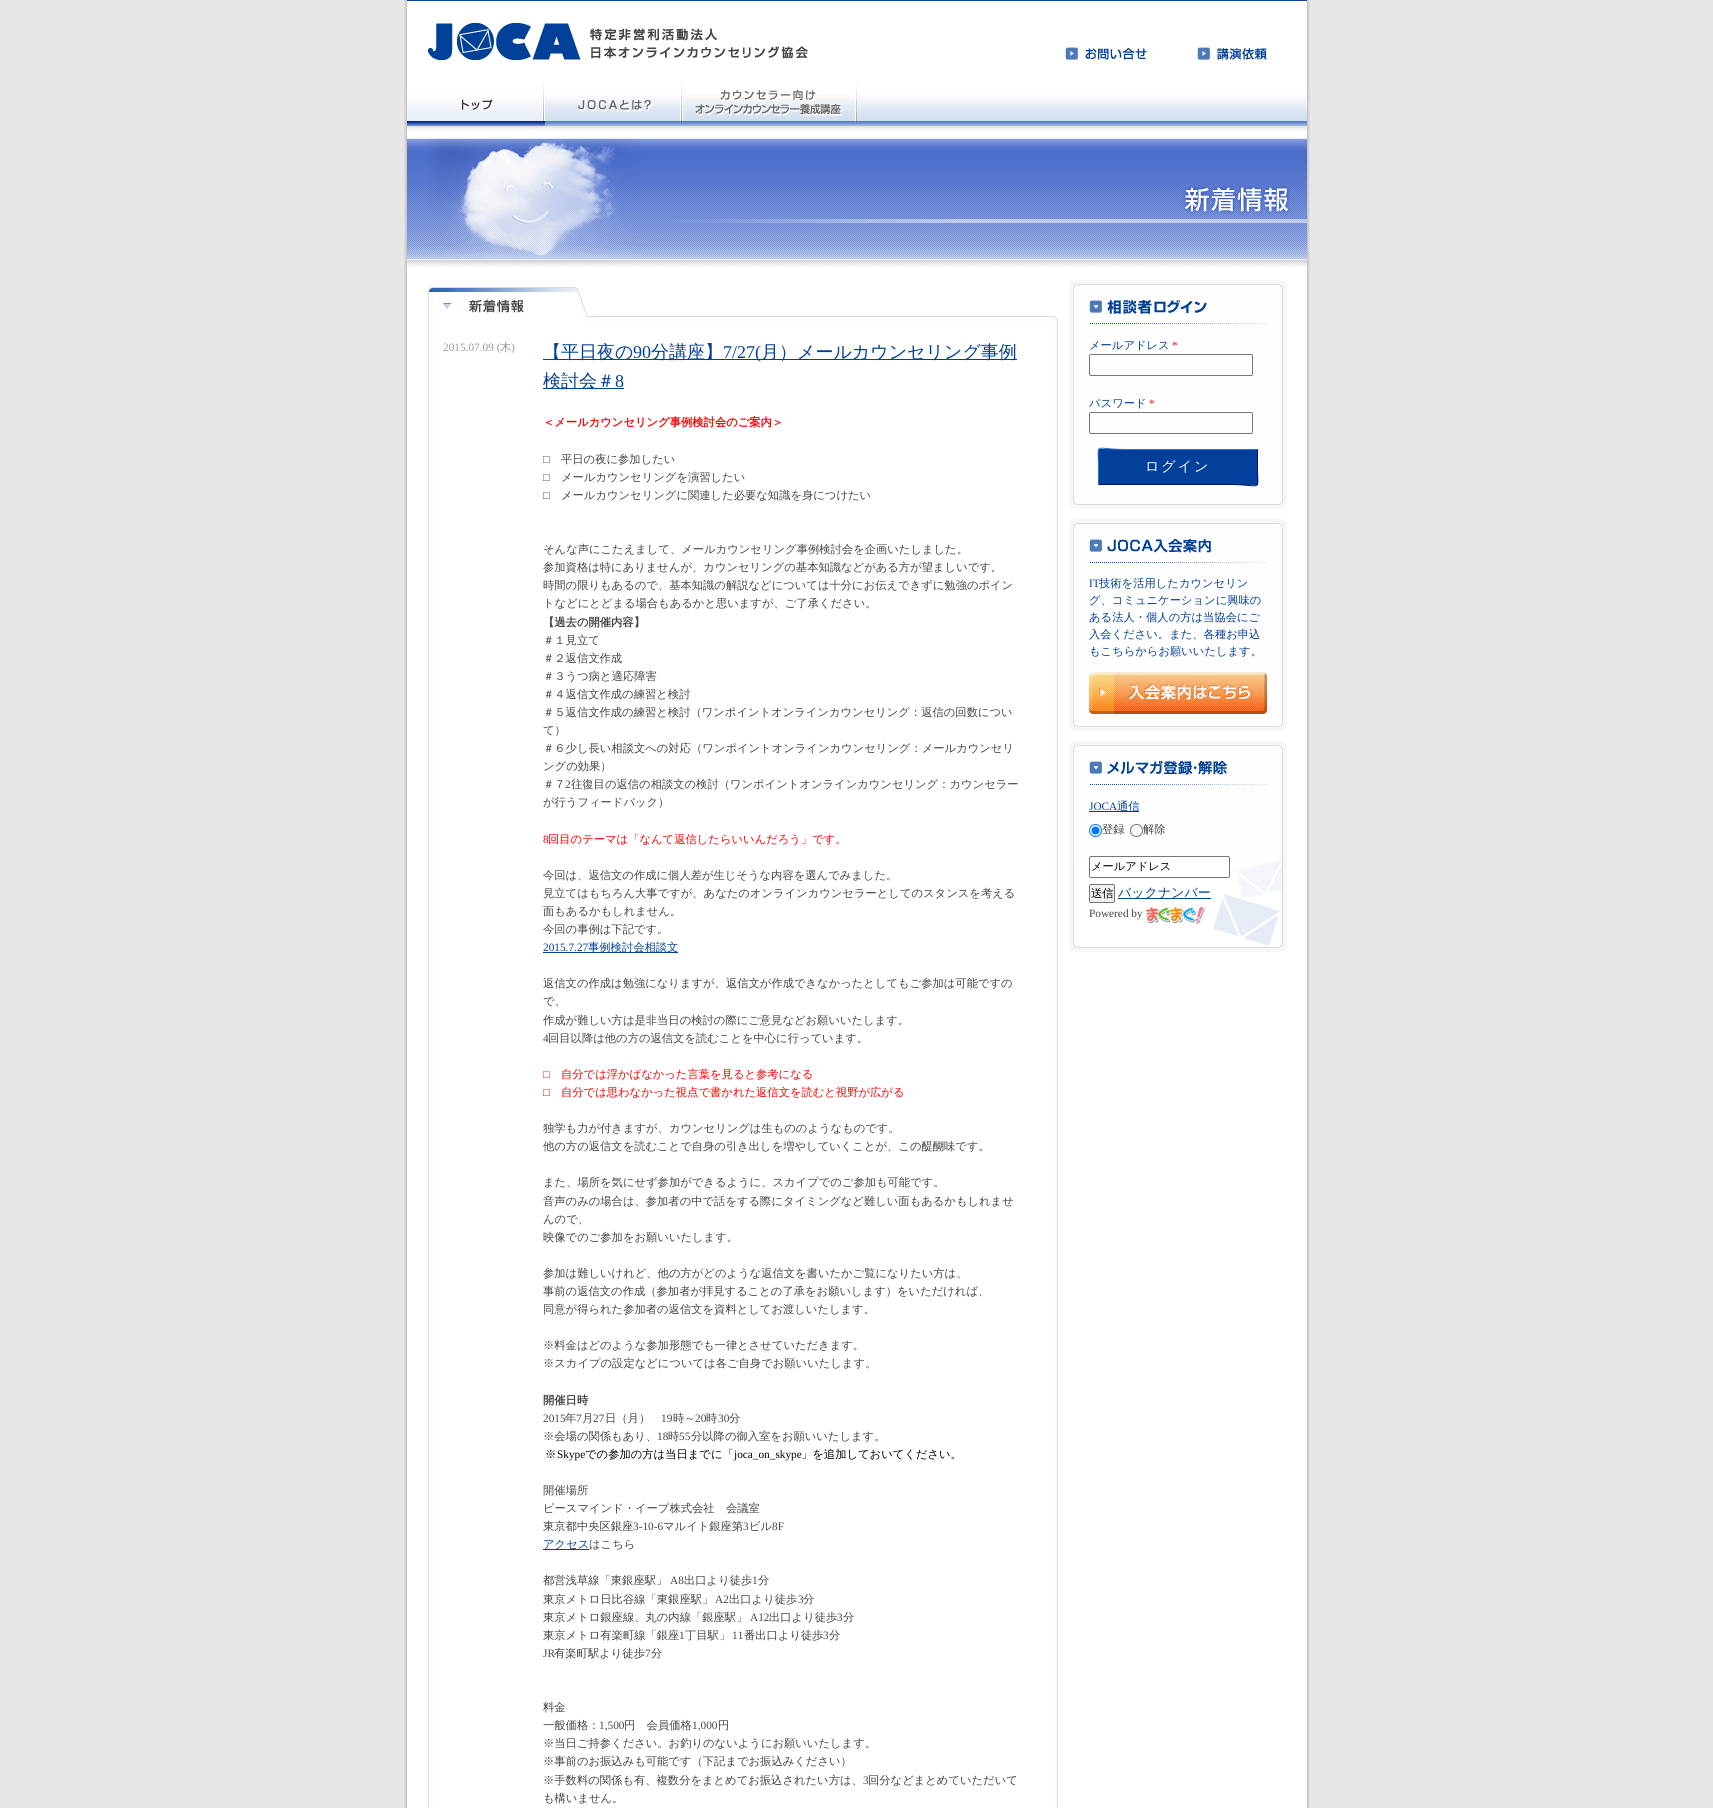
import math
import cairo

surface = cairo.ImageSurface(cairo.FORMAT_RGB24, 1713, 1808)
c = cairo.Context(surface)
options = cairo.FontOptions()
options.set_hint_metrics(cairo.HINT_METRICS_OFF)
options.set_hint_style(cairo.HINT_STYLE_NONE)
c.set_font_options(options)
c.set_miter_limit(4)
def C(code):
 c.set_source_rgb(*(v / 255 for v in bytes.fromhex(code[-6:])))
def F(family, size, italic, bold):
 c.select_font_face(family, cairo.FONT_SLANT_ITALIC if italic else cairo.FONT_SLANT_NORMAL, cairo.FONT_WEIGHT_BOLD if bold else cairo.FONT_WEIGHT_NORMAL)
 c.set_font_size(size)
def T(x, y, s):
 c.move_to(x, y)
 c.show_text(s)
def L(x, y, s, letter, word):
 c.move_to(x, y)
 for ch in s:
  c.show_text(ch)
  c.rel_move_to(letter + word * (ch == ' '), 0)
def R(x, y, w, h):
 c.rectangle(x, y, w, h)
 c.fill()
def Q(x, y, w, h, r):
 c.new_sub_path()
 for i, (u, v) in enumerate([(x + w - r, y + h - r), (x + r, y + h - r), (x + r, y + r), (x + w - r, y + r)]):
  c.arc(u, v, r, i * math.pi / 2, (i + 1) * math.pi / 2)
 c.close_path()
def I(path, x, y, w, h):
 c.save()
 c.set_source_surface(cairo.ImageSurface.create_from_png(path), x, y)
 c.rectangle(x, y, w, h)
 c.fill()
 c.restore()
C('e7e7e7')
c.paint()
I('1.png',404,0,906,1808)
C('09449e')
R(407,0,900,1)
I('2.png',428,23,380,37)
I('3.png',1065,47,82,13)
I('4.png',1197,47,70,13)
I('5.png',407,94,900,37)
I('6.png',407,84,138,42)
I('7.png',578,85,104,40)
I('8.png',682,84,175,40)
I('9.png',407,138,900,130)
I('10.png',428,287,160,29)
I('11.png',428,316,630,8)
I('12.png',428,324,630,1484)
F('Liberation Serif',11.3,0,0)
C('999999')
T(443,351,'2015.07.09 (')
F('WenQuanYi Zen Hei Medium',11.3,0,0)
T(500,351,'木')
F('Liberation Serif',11.3,0,0)
T(511,351,')')
C('014099')
R(543,359,474,1)
F('WenQuanYi Zen Hei Medium',18,0,0)
T(543,358,'【平日夜の')
F('Liberation Serif',18,0,0)
T(633,358,'90')
F('WenQuanYi Zen Hei Medium',18,0,0)
T(651,358,'分講座】')
F('Liberation Serif',18,0,0)
T(723,358,'7/27(')
F('WenQuanYi Zen Hei Medium',18,0,0)
T(761,358,'月）メールカウンセリング事例')
R(543,388,81,1)
T(543,387,'検討会＃')
F('Liberation Serif',18,0,0)
T(615,387,'8')
F('WenQuanYi Zen Hei',11.3,0,1)
C('ff0000')
T(543,426,'＜メールカウンセリング事例検討会のご案内＞')
F('Liberation Serif',11.3,0,0)
C('444444')
T(543,463,'□')
F('WenQuanYi Zen Hei Medium',11.3,0,0)
T(561,463,'平日の夜に参加したい')
F('Liberation Serif',11.3,0,0)
T(543,481,'□')
F('WenQuanYi Zen Hei Medium',11.3,0,0)
T(561,481,'メールカウンセリングを演習したい')
F('Liberation Serif',11.3,0,0)
T(543,499,'□')
F('WenQuanYi Zen Hei Medium',11.3,0,0)
T(561,499,'メールカウンセリングに関連した必要な知識を身につけたい')
T(543,553,'そんな声にこたえまして、メールカウンセリング事例検討会を企画いたしました。')
T(543,571,'参加資格は特にありませんが、カウンセリングの基本知識などがある方が望ましいです。')
T(543,589,'時間の限りもあるので、基本知識の解説などについては十分にお伝えできずに勉強のポイン')
T(543,607,'トなどにとどまる場合もあるかと思いますが、ご了承ください。')
F('WenQuanYi Zen Hei',11.3,0,1)
T(543,626,'【過去の開催内容】')
F('WenQuanYi Zen Hei Medium',11.3,0,0)
T(543,644,'＃１見立て')
T(543,662,'＃２返信文作成')
T(543,680,'＃３うつ病と適応障害')
T(543,698,'＃４返信文作成の練習と検討')
T(543,716,'＃５返信文作成の練習と検討（ワンポイントオンラインカウンセリング：返信の回数につい')
T(543,734,'て）')
T(543,752,'＃６少し長い相談文への対応（ワンポイントオンラインカウンセリング：メールカウンセリ')
T(543,770,'ングの効果）')
T(543,788,'＃７')
F('Liberation Serif',11.3,0,0)
T(565,788,'2')
F('WenQuanYi Zen Hei Medium',11.3,0,0)
T(571,788,'往復目の返信の相談文の検討（ワンポイントオンラインカウンセリング：カウンセラー')
T(543,806,'が行うフィードバック）')
F('Liberation Serif',11.3,0,0)
C('ff0000')
T(543,843,'8')
F('WenQuanYi Zen Hei Medium',11.3,0,0)
T(548,843,'回目のテーマは「なんて返信したらいいんだろう」です。')
C('444444')
T(543,879,'今回は、返信文の作成に個人差が生じそうな内容を選んでみました。')
T(543,897,'見立てはもちろん大事ですが、あなたのオンラインカウンセラーとしてのスタンスを考える')
T(543,915,'面もあるかもしれません。')
T(543,933,'今回の事例は下記です。')
F('Liberation Serif',11.3,0,0)
C('014099')
T(543,951,'2015.7.27')
R(543,952,135,1)
F('WenQuanYi Zen Hei Medium',11.3,0,0)
T(588,951,'事例検討会相談文')
C('444444')
T(543,987,'返信文の作成は勉強になりますが、返信文が作成できなかったとしてもご参加は可能ですの')
T(543,1005,'で、')
T(543,1024,'作成が難しい方は是非当日の検討の際にご意見などお願いいたします。')
F('Liberation Serif',11.3,0,0)
T(543,1042,'4')
F('WenQuanYi Zen Hei Medium',11.3,0,0)
T(548,1042,'回目以降は他の方の返信文を読むことを中心に行っています。')
F('Liberation Serif',11.3,0,0)
C('ff0000')
T(543,1078,'□')
F('WenQuanYi Zen Hei Medium',11.3,0,0)
T(561,1078,'自分では浮かばなかった言葉を見ると参考になる')
F('Liberation Serif',11.3,0,0)
T(543,1096,'□')
F('WenQuanYi Zen Hei Medium',11.3,0,0)
T(561,1096,'自分では思わなかった視点で書かれた返信文を読むと視野が広がる')
C('444444')
T(543,1132,'独学も力が付きますが、カウンセリングは生もののようなものです。')
T(543,1150,'他の方の返信文を読むことで自身の引き出しを増やしていくことが、この醍醐味です。')
T(543,1186,'また、場所を気にせず参加ができるように、スカイプでのご参加も可能です。')
T(543,1205,'音声のみの場合は、参加者の中で話をする際にタイミングなど難しい面もあるかもしれませ')
T(543,1223,'んので、')
T(543,1241,'映像でのご参加をお願いいたします。')
T(543,1277,'参加は難しいけれど、他の方がどのような返信文を書いたかご覧になりたい方は、')
T(543,1295,'事前の返信文の作成（参加者が拝見することの了承をお願いします）をいただければ、')
T(543,1313,'同意が得られた参加者の返信文を資料としてお渡しいたします。')
T(543,1349,'※料金はどのような参加形態でも一律とさせていただきます。')
T(543,1367,'※スカイプの設定などについては各ご自身でお願いいたします。')
F('WenQuanYi Zen Hei',11.3,0,1)
T(543,1404,'開催日時')
F('Liberation Serif',11.3,0,0)
T(543,1422,'2015')
F('WenQuanYi Zen Hei Medium',11.3,0,0)
T(565,1422,'年')
F('Liberation Serif',11.3,0,0)
T(576,1422,'7')
F('WenQuanYi Zen Hei Medium',11.3,0,0)
T(582,1422,'月')
F('Liberation Serif',11.3,0,0)
T(593,1422,'27')
F('WenQuanYi Zen Hei Medium',11.3,0,0)
T(605,1422,'日（月）')
F('Liberation Serif',11.3,0,0)
T(661,1422,'19')
F('WenQuanYi Zen Hei Medium',11.3,0,0)
T(673,1422,'時～')
F('Liberation Serif',11.3,0,0)
T(695,1422,'20')
F('WenQuanYi Zen Hei Medium',11.3,0,0)
T(706,1422,'時')
F('Liberation Serif',11.3,0,0)
T(718,1422,'30')
F('WenQuanYi Zen Hei Medium',11.3,0,0)
T(729,1422,'分')
T(543,1440,'※会場の関係もあり、')
F('Liberation Serif',11.3,0,0)
T(657,1440,'18')
F('WenQuanYi Zen Hei Medium',11.3,0,0)
T(668,1440,'時')
F('Liberation Serif',11.3,0,0)
T(679,1440,'55')
F('WenQuanYi Zen Hei Medium',11.3,0,0)
T(691,1440,'分以降の御入室をお願いいたします。')
C('000000')
T(545,1458,'※')
F('Liberation Serif',11.3,0,0)
T(557,1458,'Skype')
F('WenQuanYi Zen Hei Medium',11.3,0,0)
T(585,1458,'での参加の方は当日までに「')
F('Liberation Serif',11.3,0,0)
T(734,1458,'joca_on_skype')
F('WenQuanYi Zen Hei Medium',11.3,0,0)
T(801,1458,'」を追加しておいてください。')
C('444444')
T(543,1494,'開催場所')
T(543,1512,'ピースマインド・イープ株式会社　会議室')
T(543,1530,'東京都中央区銀座')
F('Liberation Serif',11.3,0,0)
T(633,1530,'3-10-6')
F('WenQuanYi Zen Hei Medium',11.3,0,0)
T(663,1530,'マルイト銀座第')
F('Liberation Serif',11.3,0,0)
T(743,1530,'3')
F('WenQuanYi Zen Hei Medium',11.3,0,0)
T(749,1530,'ビル')
F('Liberation Serif',11.3,0,0)
T(772,1530,'8F')
C('014099')
R(543,1549,46,1)
F('WenQuanYi Zen Hei Medium',11.3,0,0)
T(543,1548,'アクセス')
C('444444')
T(589,1548,'はこちら')
T(543,1584,'都営浅草線「東銀座駅」')
F('Liberation Serif',11.3,0,0)
T(670,1584,'A8')
F('WenQuanYi Zen Hei Medium',11.3,0,0)
T(684,1584,'出口より徒歩')
F('Liberation Serif',11.3,0,0)
T(752,1584,'1')
F('WenQuanYi Zen Hei Medium',11.3,0,0)
T(758,1584,'分')
T(543,1603,'東京メトロ日比谷線「東銀座駅」')
F('Liberation Serif',11.3,0,0)
T(715,1603,'A2')
F('WenQuanYi Zen Hei Medium',11.3,0,0)
T(729,1603,'出口より徒歩')
F('Liberation Serif',11.3,0,0)
T(798,1603,'3')
F('WenQuanYi Zen Hei Medium',11.3,0,0)
T(803,1603,'分')
T(543,1621,'東京メトロ銀座線、丸の内線「銀座駅」')
F('Liberation Serif',11.3,0,0)
T(750,1621,'A12')
F('WenQuanYi Zen Hei Medium',11.3,0,0)
T(769,1621,'出口より徒歩')
F('Liberation Serif',11.3,0,0)
T(837,1621,'3')
F('WenQuanYi Zen Hei Medium',11.3,0,0)
T(843,1621,'分')
T(543,1639,'東京メトロ有楽町線「銀座')
F('Liberation Serif',11.3,0,0)
T(679,1639,'1')
F('WenQuanYi Zen Hei Medium',11.3,0,0)
T(685,1639,'丁目駅」')
F('Liberation Serif',11.3,0,0)
T(732,1639,'11')
F('WenQuanYi Zen Hei Medium',11.3,0,0)
T(744,1639,'番出口より徒歩')
F('Liberation Serif',11.3,0,0)
T(823,1639,'3')
F('WenQuanYi Zen Hei Medium',11.3,0,0)
T(829,1639,'分')
F('Liberation Serif',11.3,0,0)
T(543,1657,'JR')
F('WenQuanYi Zen Hei Medium',11.3,0,0)
T(554,1657,'有楽町駅より徒歩')
F('Liberation Serif',11.3,0,0)
T(645,1657,'7')
F('WenQuanYi Zen Hei Medium',11.3,0,0)
T(651,1657,'分')
T(543,1711,'料金')
T(543,1729,'一般価格：')
F('Liberation Serif',11.3,0,0)
T(599,1729,'1,500')
F('WenQuanYi Zen Hei Medium',11.3,0,0)
T(624,1729,'円　会員価格')
F('Liberation Serif',11.3,0,0)
T(692,1729,'1,000')
F('WenQuanYi Zen Hei Medium',11.3,0,0)
T(718,1729,'円')
T(543,1747,'※当日ご持参ください。お釣りのないようにお願いいたします。')
T(543,1765,'※事前のお振込みも可能です（下記までお振込みください）')
T(543,1784,'※手数料の関係も有、複数分をまとめてお振込されたい方は、')
F('Liberation Serif',11.3,0,0)
T(863,1784,'3')
F('WenQuanYi Zen Hei Medium',11.3,0,0)
T(868,1784,'回分などまとめていただいて')
T(543,1802,'も構いません。')
I('13.png',1069,288,218,213)
I('14.png',1069,280,218,8)
I('15.png',1089,300,118,14)
I('16.png',1090,323,177,1)
C('014099')
T(1089,349,'メールアドレス')
F('Liberation Serif',11.3,0,0)
C('ff0000')
T(1172,349,'*')
Q(1089.5,354.5,163,21,1.5)
C('767676')
c.set_line_width(1)
c.stroke()
F('WenQuanYi Zen Hei Medium',11.3,0,0)
C('014099')
T(1089,407,'パスワード')
F('Liberation Serif',11.3,0,0)
C('ff0000')
T(1149,407,'*')
Q(1089.5,412.5,163,21,1.5)
C('767676')
c.stroke()
C('00409a')
Q(1098,449,160,36,1)
c.fill()
c.new_path()
c.move_to(1257.5,449.5)
c.line_to(1257.5,467)
c.curve_to(1257.5,493,1263,484.5,1230.5,484.5)
c.line_to(1098.5,484.5)
C('00106a')
c.stroke()
c.new_path()
c.move_to(1098.5,484.5)
c.line_to(1098.5,467)
c.curve_to(1098.5,441,1093,449.5,1125.5,449.5)
c.line_to(1257.5,449.5)
C('3070ca')
c.stroke()
F('WenQuanYi Zen Hei Medium',14,0,0)
C('ffffff')
L(1145,471,'ログイン',2,0)
I('17.png',1069,501,218,8)
I('18.png',1069,527,218,196)
I('14.png',1069,519,218,8)
I('19.png',1089,539,122,14)
I('16.png',1090,562,177,1)
F('Liberation Serif',11.3,0,0)
C('014099')
T(1089,587,'IT')
F('WenQuanYi Zen Hei Medium',11.3,0,0)
T(1099,587,'技術を活用したカウンセリン')
T(1089,604,'グ、コミュニケーションに興味の')
T(1089,621,'ある法人・個人の方は当協会にご')
T(1089,638,'入会ください。また、各種お申込')
T(1089,655,'もこちらからお願いいたします。')
I('20.png',1089,672,178,42)
I('17.png',1069,723,218,8)
I('21.png',1069,749,218,111)
I('14.png',1069,741,218,8)
I('22.png',1069,860,218,92)
I('23.png',1089,761,138,14)
I('16.png',1090,784,177,1)
F('Liberation Serif',11.3,0,0)
T(1089,810,'JOCA')
R(1089,811,50,1)
F('WenQuanYi Zen Hei Medium',11.3,0,0)
T(1117,810,'通信')
c.new_path()
c.arc(1095.5,830.5,6,0,2 * math.pi)
C('0075ff')
c.stroke()
c.arc(1095.5,830.5,4,0,2 * math.pi)
c.fill()
C('444444')
T(1102,833,'登録')
c.new_path()
c.arc(1136.5,830.5,6,0,2 * math.pi)
C('767676')
c.stroke()
C('444444')
T(1143,833,'解除')
Q(1089.5,856.5,140,21,1.5)
C('767676')
c.stroke()
F('WenQuanYi Zen Hei Medium',11.25,0,0)
C('000000')
T(1091,870,'メールアドレス')
C('efefef')
Q(1089.5,884.5,25,18,1.5)
c.fill_preserve()
C('767676')
c.stroke()
C('000000')
T(1091,897,'送信')
C('014099')
R(1118,898,93,1)
F('WenQuanYi Zen Hei Medium',13,0,0)
T(1118,897,'バックナンバー')
F('Liberation Serif',11.3,0,0)
C('444444')
T(1089,917,'Powered by')
I('24.png',1145,905,60,19)
surface.write_to_png('o.png')
